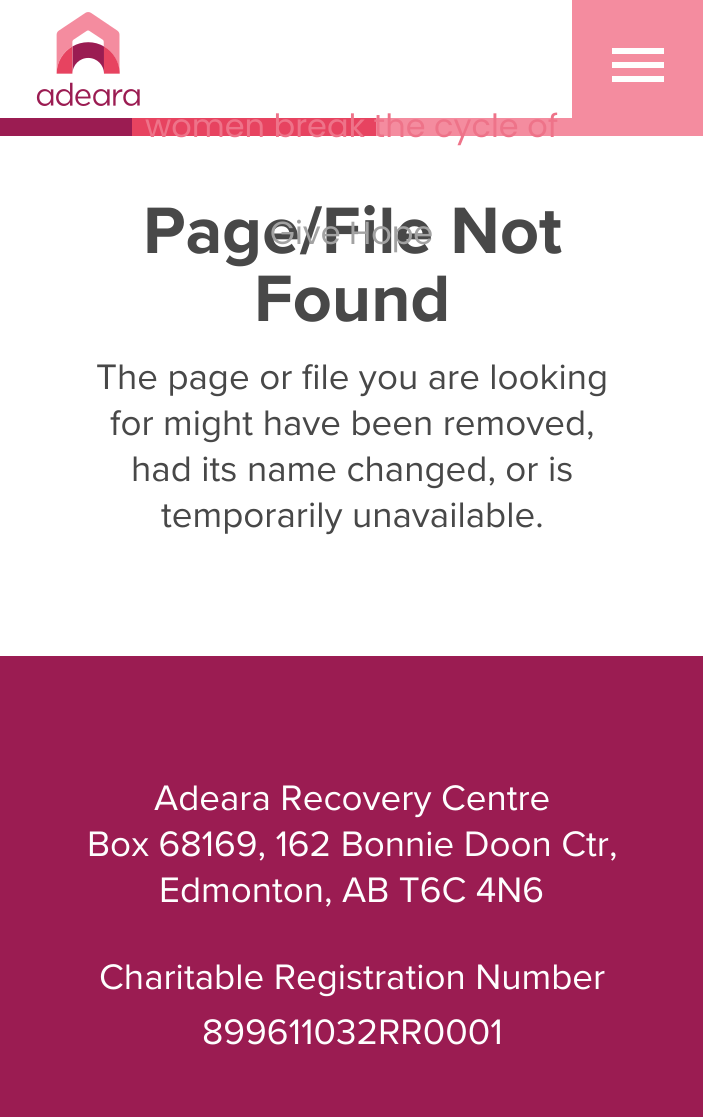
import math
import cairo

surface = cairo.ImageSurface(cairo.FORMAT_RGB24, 703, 1117)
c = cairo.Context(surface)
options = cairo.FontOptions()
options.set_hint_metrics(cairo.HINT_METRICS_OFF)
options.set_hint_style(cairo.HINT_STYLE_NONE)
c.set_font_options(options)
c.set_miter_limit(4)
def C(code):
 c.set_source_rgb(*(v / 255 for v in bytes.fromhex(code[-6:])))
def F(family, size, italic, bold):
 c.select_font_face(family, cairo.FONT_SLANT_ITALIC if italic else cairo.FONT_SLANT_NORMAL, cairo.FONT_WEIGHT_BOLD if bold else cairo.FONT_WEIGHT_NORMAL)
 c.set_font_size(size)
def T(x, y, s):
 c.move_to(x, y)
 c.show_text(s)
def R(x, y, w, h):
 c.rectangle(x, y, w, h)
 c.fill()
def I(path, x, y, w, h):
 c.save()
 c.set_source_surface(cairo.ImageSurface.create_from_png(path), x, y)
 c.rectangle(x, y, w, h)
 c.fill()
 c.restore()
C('ffffff')
c.paint()
I('1.png',36,12,104,94)
C('f48c9f')
R(572,0,131,118)
C('fefefe')
R(612,48,52,6)
R(612,62,52,6)
R(612,76,52,6)
C('f48c9f')
R(376,118,327,18)
C('e74360')
R(132,118,244,18)
C('9b1c52')
R(0,118,132,18)
F('Poppins',32,0,0)
C('ee7389')
T(145,137,'women break the cycle of')
F('Proxima Nova',68,0,1)
C('484848')
T(143,253,'Page/File Not')
F('Poppins',32,0,0)
C('a2a2a2')
T(270,244,'Give Hope')
F('Proxima Nova',68,0,1)
C('484848')
T(254,321,'Found')
F('Proxima Nova',36.75,0,0)
T(96,389,'The page or file you are looking')
T(110,435,'for might have been removed,')
T(131,481,'had its name changed, or is')
T(161,527,'temporarily unavailable.')
C('9b1c52')
R(0,656,703,461)
C('fefefe')
T(154,810,'Adeara Recovery Centre')
T(87,856,'Box 68169, 162 Bonnie Doon Ctr,')
T(159,902,'Edmonton, AB T6C 4N6')
T(99,989,'Charitable Registration Number')
T(202,1044,'899611032RR0001')
surface.write_to_png('o.png')
